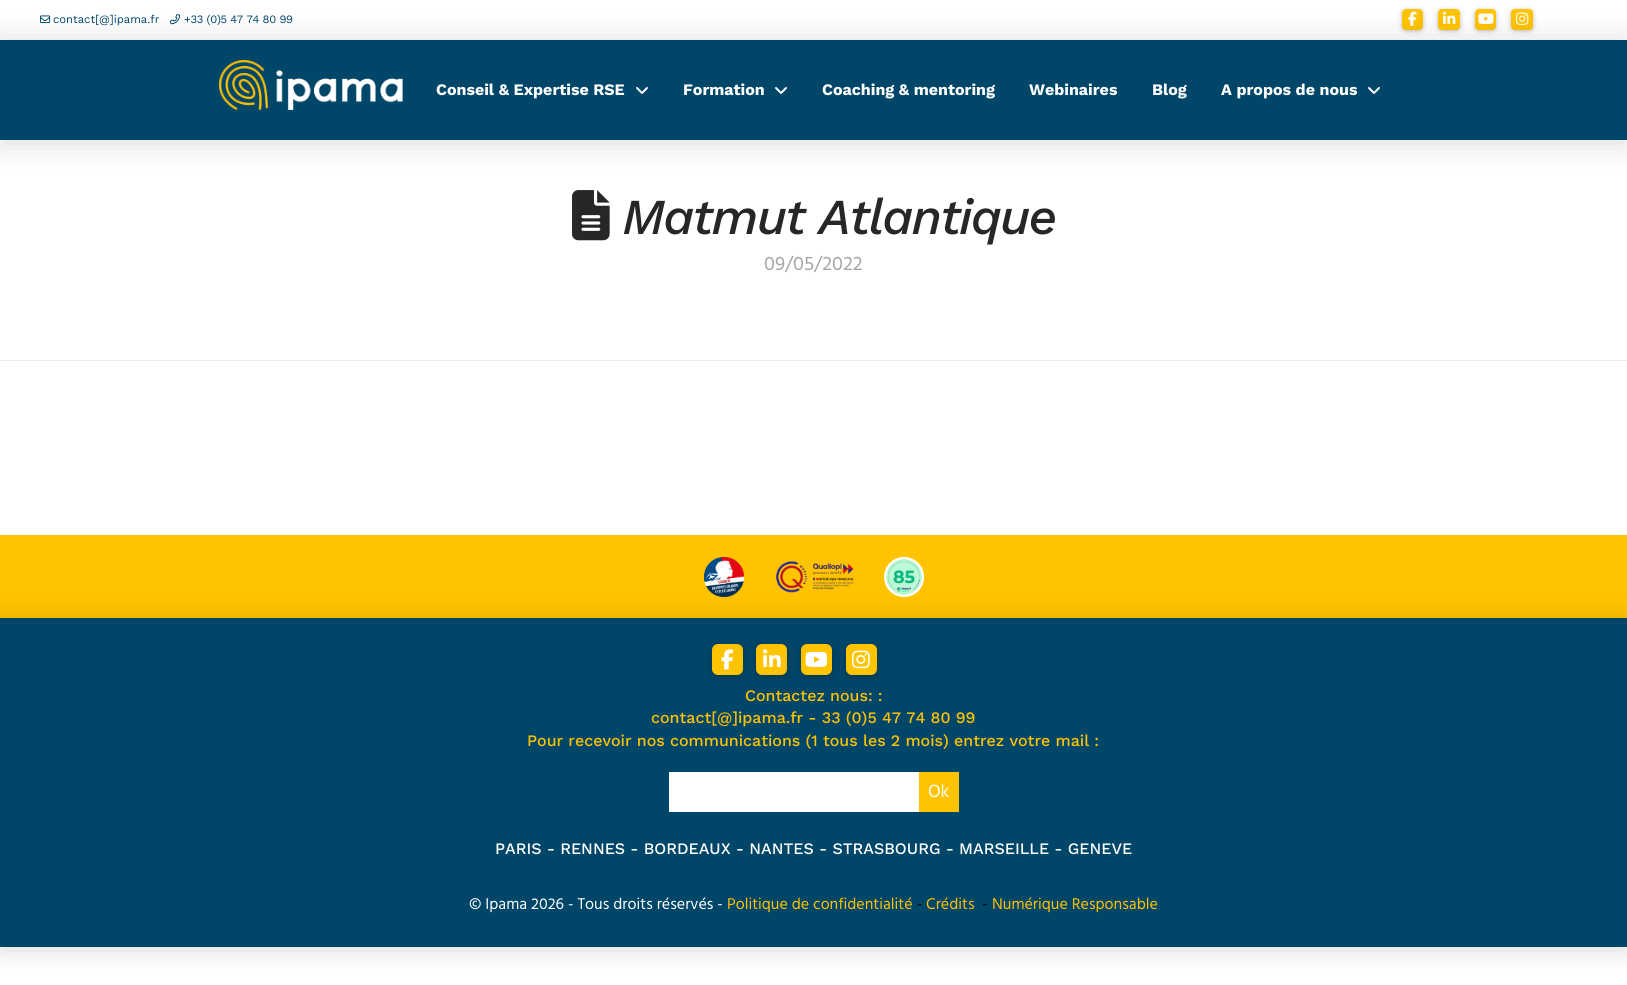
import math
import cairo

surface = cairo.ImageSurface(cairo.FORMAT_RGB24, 1627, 985)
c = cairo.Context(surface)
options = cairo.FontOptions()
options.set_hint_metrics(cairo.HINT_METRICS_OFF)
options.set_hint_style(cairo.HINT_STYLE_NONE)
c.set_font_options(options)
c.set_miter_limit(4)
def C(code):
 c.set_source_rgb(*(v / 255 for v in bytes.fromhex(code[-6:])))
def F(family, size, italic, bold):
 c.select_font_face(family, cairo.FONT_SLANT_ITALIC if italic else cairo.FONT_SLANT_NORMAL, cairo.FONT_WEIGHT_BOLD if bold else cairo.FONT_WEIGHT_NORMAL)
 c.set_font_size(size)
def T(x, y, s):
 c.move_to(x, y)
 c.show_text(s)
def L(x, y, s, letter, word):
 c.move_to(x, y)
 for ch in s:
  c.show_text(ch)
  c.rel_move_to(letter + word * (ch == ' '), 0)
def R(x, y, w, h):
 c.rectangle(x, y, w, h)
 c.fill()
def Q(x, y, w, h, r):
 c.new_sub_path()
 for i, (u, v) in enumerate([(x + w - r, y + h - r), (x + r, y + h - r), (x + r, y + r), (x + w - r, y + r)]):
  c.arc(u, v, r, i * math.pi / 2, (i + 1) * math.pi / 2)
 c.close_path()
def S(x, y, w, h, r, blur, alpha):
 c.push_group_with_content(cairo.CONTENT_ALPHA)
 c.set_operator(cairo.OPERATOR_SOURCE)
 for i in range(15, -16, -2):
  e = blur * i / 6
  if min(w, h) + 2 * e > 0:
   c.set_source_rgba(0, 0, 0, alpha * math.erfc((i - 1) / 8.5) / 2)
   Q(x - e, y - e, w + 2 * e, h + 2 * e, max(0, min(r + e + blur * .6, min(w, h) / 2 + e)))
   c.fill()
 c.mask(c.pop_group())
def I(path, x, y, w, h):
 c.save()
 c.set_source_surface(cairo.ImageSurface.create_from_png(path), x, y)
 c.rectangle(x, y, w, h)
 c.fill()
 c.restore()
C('ffffff')
c.paint()
I('1.png',40,15,11,8)
F('Work Sans',11.25,0,0)
C('004669')
T(53,23,'contact[@]ipama.fr')
I('2.png',170,14,11,11)
L(184,23,'+33 (0)5 47 74 80 99',-.3,0)
C('000000')
S(1402,10,21,21,4,2.5,.25)
C('ffc300')
Q(1402,9,21,21,4)
c.fill()
I('3.png',1408,11,9,15)
C('000000')
S(1438,10,22,21,4,2.5,.25)
C('ffc300')
Q(1438,9,22,21,4)
c.fill()
I('4.png',1443,11,13,13)
C('000000')
S(1475,10,21,21,4,2.5,.25)
C('ffc300')
Q(1475,9,21,21,4)
c.fill()
I('5.png',1478,13,16,11)
C('000000')
S(1511,10,22,21,4,2.5,.25)
C('ffc300')
Q(1511,9,22,21,4)
c.fill()
I('6.png',1516,12,13,13)
I('9.png',572,190,38,51)
C('000000')
S(0,42,1627,100,0,16,.15)
C('004669')
R(0,40,1627,100)
I('7.png',219,60,184,50)
F('Work Sans',16,0,1)
C('ffffff')
T(436,95,'Conseil & Expertise RSE')
I('8.png',636,87,12,7)
T(683,95,'Formation')
I('8.png',775,87,12,7)
T(822,95,'Coaching & mentoring')
T(1029,95,'Webinaires')
T(1152,95,'Blog')
T(1221,95,'A propos de nous')
I('8.png',1368,87,12,7)
C('ececec')
R(0,360,1627,1)
F('Work Sans Medium',50.25,1,0)
C('272727')
L(622,234,'Matmut Atlantique',-1.75,0)
F('Hind Madurai',20,0,0)
C('a6a6a6')
T(764,270,'09/05/2022')
C('ffc300')
R(0,535,1627,83)
I('10.png',704,557,40,40)
I('11.png',776,561,78,32)
I('12.png',884,557,40,40)
C('000000')
S(0,621,1627,329,0,12.5,.15)
C('004669')
R(0,618,1627,329)
C('000000')
S(712,646,31,31,6,3.5,.25)
C('ffc300')
Q(712,644,31,31,6)
c.fill()
I('13.png',721,649,13,21)
C('000000')
S(756,646,31,31,6,3.5,.25)
C('ffc300')
Q(756,644,31,31,6)
c.fill()
I('14.png',763,649,18,18)
C('000000')
S(801,646,31,31,6,3.5,.25)
C('ffc300')
Q(801,644,31,31,6)
c.fill()
I('15.png',805,651,23,16)
C('000000')
S(846,646,31,31,6,3.5,.25)
C('ffc300')
Q(846,644,31,31,6)
c.fill()
I('16.png',852,650,18,19)
F('Work Sans Medium',16,0,0)
T(745,701,'Contactez nous: :')
T(651,723,'contact[@]ipama.fr - 33 (0)5 47 74 80 99')
T(527,746,'Pour recevoir nos communications (1 tous les 2 mois) entrez votre mail :')
C('ffffff')
R(669,772,250,40)
C('ffc300')
R(919,772,40,40)
F('Hind Madurai',18,0,0)
C('ffffff')
T(928,797,'Ok')
F('Work Sans Medium',16,0,0)
T(495,854,'PARIS - RENNES - BORDEAUX - NANTES - STRASBOURG - MARSEILLE - GENEVE')
F('Hind Madurai',16,0,0)
T(469,909,'© Ipama 2026 - Tous droits réservés -')
C('ffc300')
T(727,909,'Politique de confidentialité')
C('000000')
T(917,909,'-')
C('ffc300')
T(926,909,'Crédits')
C('000000')
T(982,909,'-')
C('ffc300')
T(992,909,'Numérique Responsable')
surface.write_to_png('o.png')
